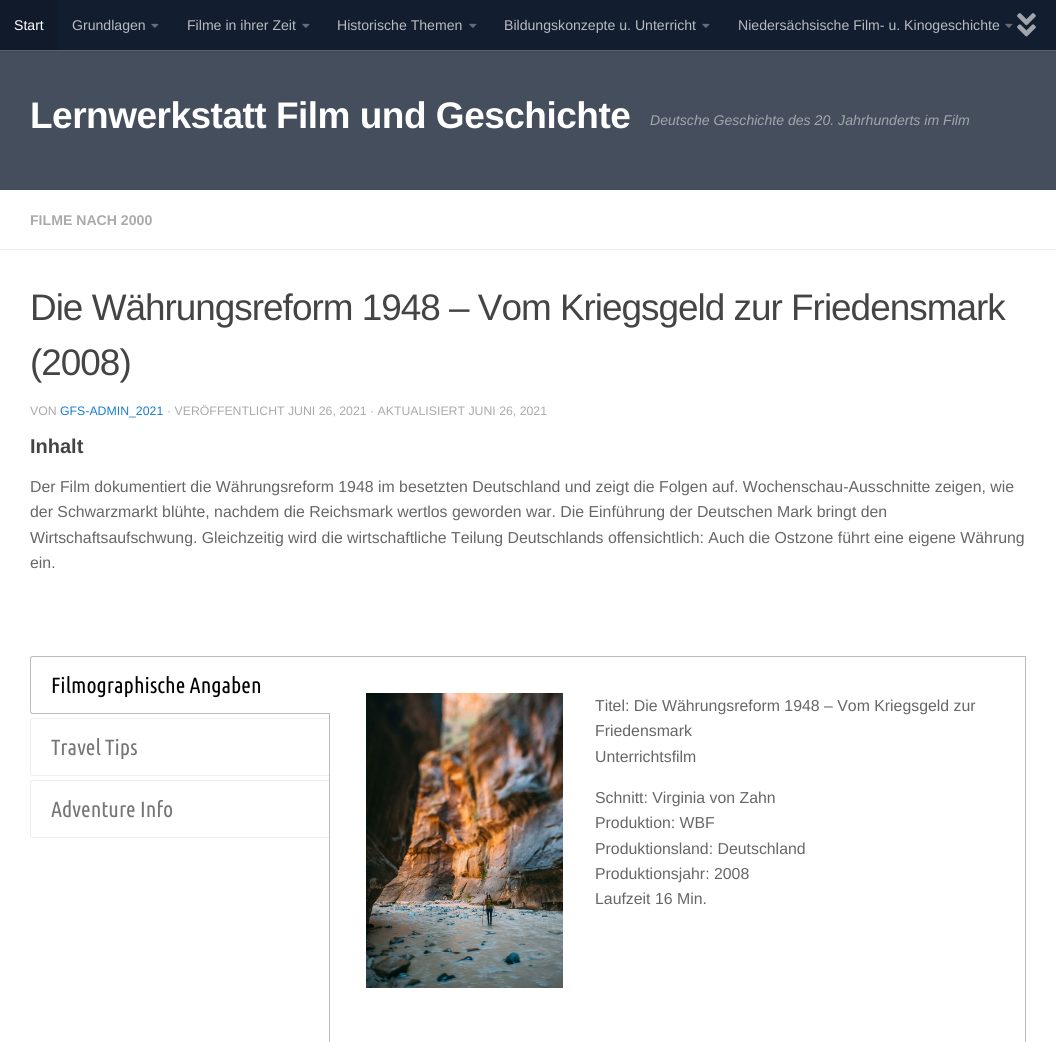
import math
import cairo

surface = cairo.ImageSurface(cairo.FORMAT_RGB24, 1056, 1042)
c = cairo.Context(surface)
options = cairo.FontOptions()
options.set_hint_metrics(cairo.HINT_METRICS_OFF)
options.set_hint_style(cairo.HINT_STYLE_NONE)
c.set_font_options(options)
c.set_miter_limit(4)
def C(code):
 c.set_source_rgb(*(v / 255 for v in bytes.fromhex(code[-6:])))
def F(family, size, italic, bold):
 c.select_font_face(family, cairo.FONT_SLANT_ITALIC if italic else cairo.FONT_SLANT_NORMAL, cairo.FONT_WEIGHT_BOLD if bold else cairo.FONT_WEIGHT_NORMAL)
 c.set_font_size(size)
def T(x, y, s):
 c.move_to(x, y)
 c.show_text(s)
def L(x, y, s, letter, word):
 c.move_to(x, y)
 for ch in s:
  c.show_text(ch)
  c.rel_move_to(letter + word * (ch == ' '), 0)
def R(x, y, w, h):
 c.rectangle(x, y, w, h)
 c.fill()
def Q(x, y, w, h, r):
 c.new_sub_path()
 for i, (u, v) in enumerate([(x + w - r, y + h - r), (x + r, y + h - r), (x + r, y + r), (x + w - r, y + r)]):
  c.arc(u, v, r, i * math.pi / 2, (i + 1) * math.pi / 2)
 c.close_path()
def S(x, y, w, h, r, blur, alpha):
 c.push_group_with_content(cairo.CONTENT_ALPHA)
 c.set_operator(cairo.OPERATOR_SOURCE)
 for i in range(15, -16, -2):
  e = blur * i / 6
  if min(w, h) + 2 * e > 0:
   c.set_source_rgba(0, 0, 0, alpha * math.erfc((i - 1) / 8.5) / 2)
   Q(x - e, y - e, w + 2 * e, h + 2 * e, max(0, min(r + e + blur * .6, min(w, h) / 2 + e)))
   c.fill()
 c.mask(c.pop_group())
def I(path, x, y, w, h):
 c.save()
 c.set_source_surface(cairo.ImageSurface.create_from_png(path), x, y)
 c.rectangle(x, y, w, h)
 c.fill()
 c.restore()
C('454e5c')
c.paint()
C('616974')
R(0,50,1056,1)
C('000000')
S(0,0,1056,50,0,2.5,.2)
C('121d30')
R(58,0,998,50)
C('101a2b')
R(0,0,58,50)
F('Liberation Sans',14.1,0,0)
C('ffffff')
T(14,30,'Start')
C('b8bbc1')
T(72,30,'Grundlagen')
I('1.png',151,23,8,5)
T(187,30,'Filme in ihrer Zeit')
I('1.png',302,23,8,5)
T(337,30,'Historische Themen')
I('1.png',469,23,8,5)
T(504,30,'Bildungskonzepte u. Unterricht')
I('1.png',702,23,8,5)
T(738,30,'Niedersächsische Film- u. Kinogeschichte')
I('1.png',1005,23,8,5)
I('2.png',1017,13,19,24)
F('Liberation Sans',37,0,1)
C('ffffff')
L(30,128,'Lernwerkstatt Film und Geschichte',-.5,0)
F('Liberation Sans',14.1,1,0)
C('a2a7ae')
T(650,125,'Deutsche Geschichte des 20. Jahrhunderts im Film')
C('ffffff')
R(0,190,1056,852)
C('eeeeee')
R(0,249,1056,1)
F('Liberation Sans',14.1,0,1)
C('aaaaaa')
T(30,225,'FILME NACH 2000')
F('Liberation Sans',36.9,0,0)
C('444444')
L(30,320,'Die Währungsreform 1948 – Vom Kriegsgeld zur Friedensmark',-1,0)
L(30,375,'(2008)',-1,0)
F('Liberation Sans',12.3,0,0)
C('aaaaaa')
T(30,415,'VON')
C('167ece')
T(60,415,'GFS-ADMIN_2021')
C('aaaaaa')
T(167,415,'· VERÖFFENTLICHT JUNI 26, 2021 · AKTUALISIERT JUNI 26, 2021')
F('Liberation Sans',20,0,1)
C('444444')
T(30,453,'Inhalt')
F('Liberation Sans',15.85,0,0)
C('666666')
T(30,492,'Der Film dokumentiert die Währungsreform 1948 im besetzten Deutschland und zeigt die Folgen auf. Wochenschau-Ausschnitte zeigen, wie')
T(30,517,'der Schwarzmarkt blühte, nachdem die Reichsmark wertlos geworden war. Die Einführung der Deutschen Mark bringt den')
T(30,543,'Wirtschaftsaufschwung. Gleichzeitig wird die wirtschaftliche Teilung Deutschlands offensichtlich: Auch die Ostzone führt eine eigene Währung')
T(30,568,'ein.')
C('eeeeee')
c.set_fill_rule(cairo.FILL_RULE_EVEN_ODD)
c.new_path()
c.move_to(33,718)
c.line_to(330,718)
c.line_to(330,776)
c.line_to(33,776)
c.curve_to(31,776,30,775,30,773)
c.line_to(30,721)
c.curve_to(30,719,31,718,33,718)
c.close_path()
c.move_to(33,719)
c.line_to(330,719)
c.line_to(330,775)
c.line_to(33,775)
c.curve_to(32,775,31,774,31,773)
c.line_to(31,721)
c.curve_to(31,720,32,719,33,719)
c.close_path()
c.fill()
c.new_path()
c.move_to(33,780)
c.line_to(330,780)
c.line_to(330,838)
c.line_to(33,838)
c.curve_to(31,838,30,837,30,835)
c.line_to(30,783)
c.curve_to(30,781,31,780,33,780)
c.close_path()
c.move_to(33,781)
c.line_to(330,781)
c.line_to(330,837)
c.line_to(33,837)
c.curve_to(32,837,31,836,31,835)
c.line_to(31,783)
c.curve_to(31,782,32,781,33,781)
c.close_path()
c.fill()
c.rectangle(329.5,656.5,696,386)
C('bbbbbb')
c.set_line_width(1)
c.stroke()
C('ffffff')
c.new_path()
c.move_to(33,657)
c.line_to(330,657)
c.line_to(330,713)
c.line_to(33,713)
c.curve_to(32,713,31,712,31,711)
c.line_to(31,659)
c.curve_to(31,658,32,657,33,657)
c.close_path()
c.fill()
C('bbbbbb')
c.new_path()
c.move_to(33,656)
c.line_to(330,656)
c.line_to(330,714)
c.line_to(33,714)
c.curve_to(31,714,30,713,30,711)
c.line_to(30,659)
c.curve_to(30,657,31,656,33,656)
c.close_path()
c.move_to(33,657)
c.line_to(330,657)
c.line_to(330,713)
c.line_to(33,713)
c.curve_to(32,713,31,712,31,711)
c.line_to(31,659)
c.curve_to(31,658,32,657,33,657)
c.close_path()
c.fill()
F('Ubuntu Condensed',22,0,0)
C('000000')
T(51,693,'Filmographische Angaben')
C('767676')
T(51,755,'Travel Tips')
T(51,817,'Adventure Info')
I('3.png',366,693,197,295)
F('Liberation Sans',15.85,0,0)
C('666666')
T(595,711,'Titel: Die Währungsreform 1948 – Vom Kriegsgeld zur')
T(595,736,'Friedensmark')
T(595,762,'Unterrichtsfilm')
T(595,803,'Schnitt: Virginia von Zahn')
T(595,828,'Produktion: WBF')
T(595,854,'Produktionsland: Deutschland')
T(595,879,'Produktionsjahr: 2008')
T(595,904,'Laufzeit 16 Min.')
surface.write_to_png('o.png')
